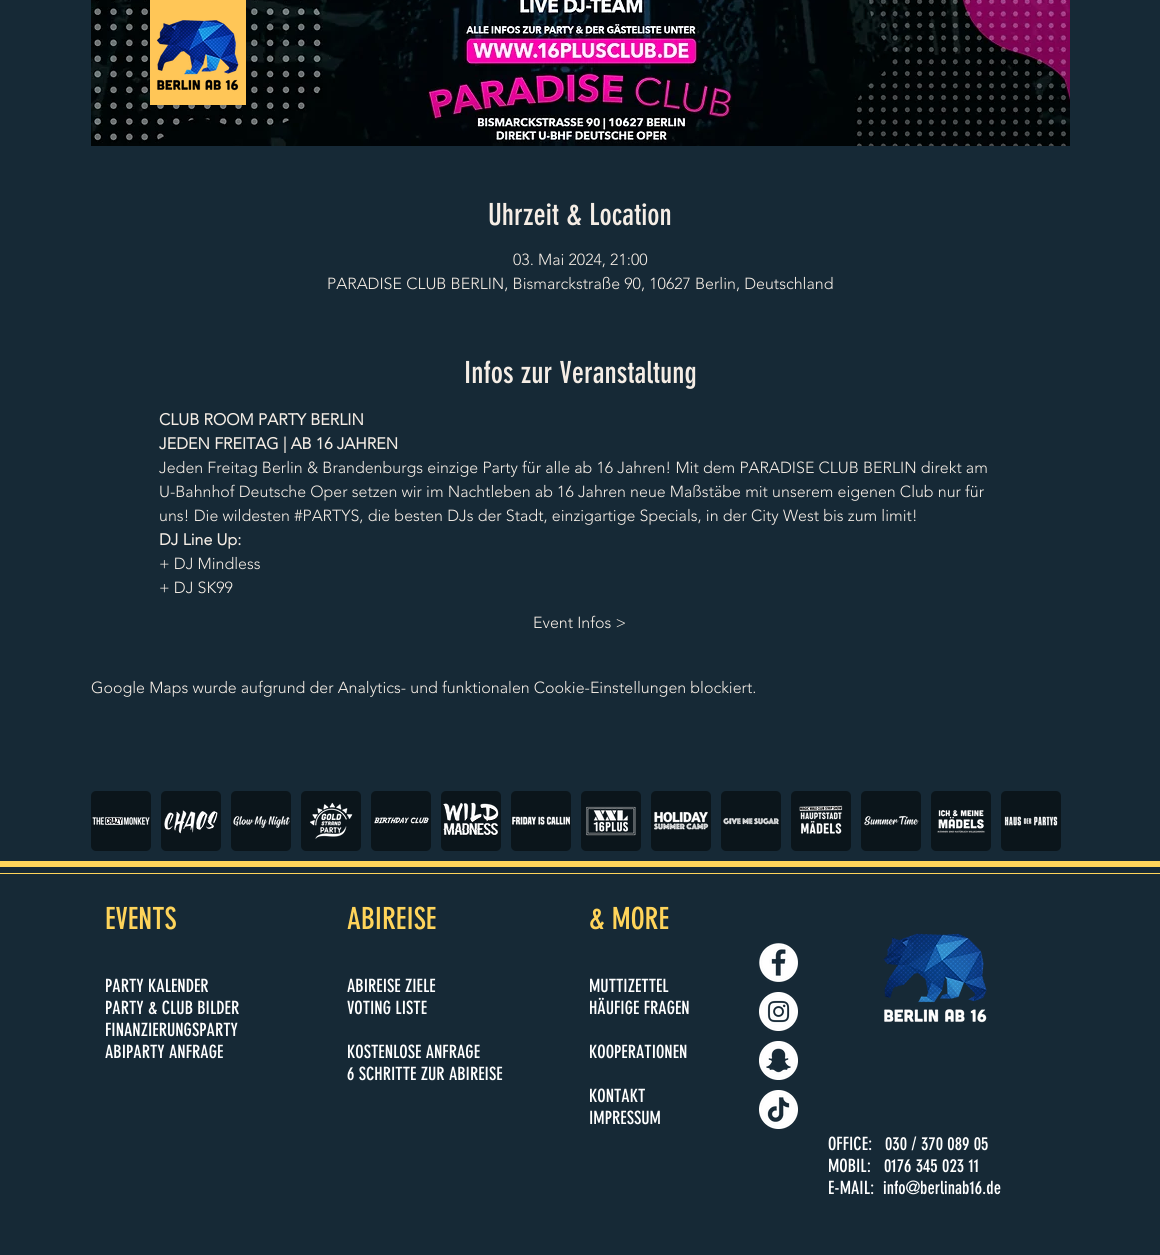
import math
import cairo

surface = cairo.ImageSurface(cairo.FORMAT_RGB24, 1160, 1255)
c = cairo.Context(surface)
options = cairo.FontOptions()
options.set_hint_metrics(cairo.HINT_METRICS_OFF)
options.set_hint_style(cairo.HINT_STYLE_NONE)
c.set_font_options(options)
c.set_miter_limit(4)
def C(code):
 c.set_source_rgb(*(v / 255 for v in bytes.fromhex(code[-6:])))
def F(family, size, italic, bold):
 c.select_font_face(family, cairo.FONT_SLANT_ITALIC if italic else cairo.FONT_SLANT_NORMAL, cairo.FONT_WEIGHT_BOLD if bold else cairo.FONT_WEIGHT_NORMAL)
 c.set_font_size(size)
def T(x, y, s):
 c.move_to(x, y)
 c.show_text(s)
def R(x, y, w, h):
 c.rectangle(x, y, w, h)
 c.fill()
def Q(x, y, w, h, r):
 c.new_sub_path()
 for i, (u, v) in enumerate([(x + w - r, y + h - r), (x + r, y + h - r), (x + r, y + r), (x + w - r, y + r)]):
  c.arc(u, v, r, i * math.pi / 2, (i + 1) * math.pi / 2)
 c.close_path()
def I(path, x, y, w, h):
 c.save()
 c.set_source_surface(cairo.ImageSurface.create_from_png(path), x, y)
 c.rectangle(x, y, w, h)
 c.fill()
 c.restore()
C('162936')
c.paint()
I('2.png',91,0,979,146)
C('ffc657')
R(150,0,96,105)
I('1.png',156,20,83,71)
F('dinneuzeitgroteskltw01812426',30,0,0)
C('f5ede5')
T(488,225,'Uhrzeit & Location')
F('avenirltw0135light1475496 Light',16,0,0)
T(513,265,'03. Mai 2024, 21:00')
T(327,289,'PARADISE CLUB BERLIN, Bismarckstraße 90, 10627 Berlin, Deutschland')
F('dinneuzeitgroteskltw01812426',30,0,0)
T(464,383,'Infos zur Veranstaltung')
F('avenirltw0135light1475496',16,0,1)
T(159,425,'CLUB ROOM PARTY BERLIN')
T(159,449,'JEDEN FREITAG | AB 16 JAHREN')
F('avenirltw0135light1475496 Light',16,0,0)
T(159,473,'Jeden Freitag Berlin & Brandenburgs einzige Party für alle ab 16 Jahren! Mit dem PARADISE CLUB BERLIN direkt am')
T(159,497,'U-Bahnhof Deutsche Oper setzen wir im Nachtleben ab 16 Jahren neue Maßstäbe mit unserem eigenen Club nur für')
T(159,521,'uns! Die wildesten #PARTYS, die besten DJs der Stadt, einzigartige Specials, in der City West bis zum limit!')
F('avenirltw0135light1475496',16,0,1)
T(159,545,'DJ Line Up:')
F('avenirltw0135light1475496 Light',16,0,0)
T(159,569,'+ DJ Mindless')
T(159,593,'+ DJ SK99')
T(533,628,'Event Infos >')
T(91,693,'Google Maps wurde aufgrund der Analytics- und funktionalen Cookie-Einstellungen blockiert.')
C('0b151b')
Q(91,791,60,60,5)
c.fill()
I('3.png',92,817,58,8)
Q(161,791,60,60,5)
c.fill()
I('4.png',164,810,54,24)
Q(231,791,60,60,5)
c.fill()
I('5.png',233,816,57,12)
Q(301,791,60,60,5)
c.fill()
I('6.png',310,802,43,37)
Q(371,791,60,60,5)
c.fill()
I('7.png',374,817,55,7)
Q(441,791,60,60,5)
c.fill()
I('8.png',443,802,56,34)
Q(511,791,60,60,5)
c.fill()
I('9.png',512,816,58,9)
Q(581,791,60,60,5)
c.fill()
I('10.png',586,806,50,30)
Q(651,791,60,60,5)
c.fill()
I('11.png',654,811,55,19)
Q(721,791,60,60,5)
c.fill()
I('12.png',723,818,56,7)
Q(791,791,60,60,5)
c.fill()
I('13.png',799,805,44,29)
Q(861,791,60,60,5)
c.fill()
I('14.png',864,815,55,11)
Q(931,791,60,60,5)
c.fill()
I('15.png',937,810,48,23)
Q(1001,791,60,60,5)
c.fill()
I('16.png',1004,816,54,10)
C('ffd45a')
R(0,861,1160,6)
R(0,873,1160,1)
F('dinneuzeitgroteskltw01812426',30,0,0)
T(105,929,'EVENTS')
F('dinneuzeitgroteskltw01812426',18,0,0)
C('ffffff')
T(105,992,'PARTY KALENDER')
T(105,1014,'PARTY & CLUB BILDER')
T(105,1036,'FINANZIERUNGSPARTY')
T(105,1058,'ABIPARTY ANFRAGE')
F('dinneuzeitgroteskltw01812426',30,0,0)
C('ffd45a')
T(347,929,'ABIREISE')
F('dinneuzeitgroteskltw01812426',18,0,0)
C('ffffff')
T(347,992,'ABIREISE ZIELE')
T(347,1014,'VOTING LISTE')
T(347,1058,'KOSTENLOSE ANFRAGE')
T(347,1080,'6 SCHRITTE ZUR ABIREISE')
F('dinneuzeitgroteskltw01812426',30,0,0)
C('ffd45a')
T(589,929,'& MORE')
F('dinneuzeitgroteskltw01812426',18,0,0)
C('ffffff')
T(589,992,'MUTTIZETTEL')
T(589,1014,'HÄUFIGE FRAGEN')
T(589,1058,'KOOPERATIONEN')
T(589,1102,'KONTAKT')
T(589,1124,'IMPRESSUM')
I('17.png',759,943,39,39)
I('18.png',759,992,39,39)
I('19.png',759,1041,39,39)
I('20.png',759,1090,39,39)
I('21.png',883,933,104,90)
T(828,1150,'OFFICE:')
T(885,1150,'030 / 370 089 05')
T(828,1172,'MOBIL:')
T(884,1172,'0176 345 023 11')
T(828,1194,'E-MAIL:')
T(883,1194,'info@berlinab16.de')
surface.write_to_png('o.png')
